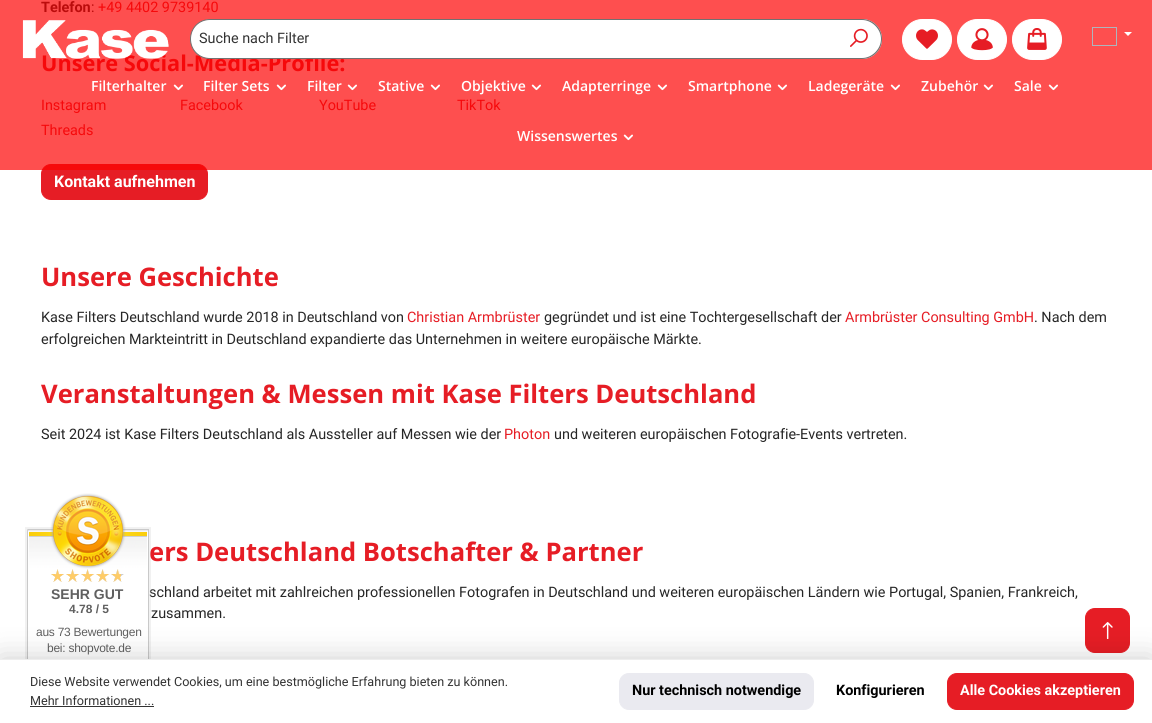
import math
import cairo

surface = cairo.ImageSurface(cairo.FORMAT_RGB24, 1152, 723)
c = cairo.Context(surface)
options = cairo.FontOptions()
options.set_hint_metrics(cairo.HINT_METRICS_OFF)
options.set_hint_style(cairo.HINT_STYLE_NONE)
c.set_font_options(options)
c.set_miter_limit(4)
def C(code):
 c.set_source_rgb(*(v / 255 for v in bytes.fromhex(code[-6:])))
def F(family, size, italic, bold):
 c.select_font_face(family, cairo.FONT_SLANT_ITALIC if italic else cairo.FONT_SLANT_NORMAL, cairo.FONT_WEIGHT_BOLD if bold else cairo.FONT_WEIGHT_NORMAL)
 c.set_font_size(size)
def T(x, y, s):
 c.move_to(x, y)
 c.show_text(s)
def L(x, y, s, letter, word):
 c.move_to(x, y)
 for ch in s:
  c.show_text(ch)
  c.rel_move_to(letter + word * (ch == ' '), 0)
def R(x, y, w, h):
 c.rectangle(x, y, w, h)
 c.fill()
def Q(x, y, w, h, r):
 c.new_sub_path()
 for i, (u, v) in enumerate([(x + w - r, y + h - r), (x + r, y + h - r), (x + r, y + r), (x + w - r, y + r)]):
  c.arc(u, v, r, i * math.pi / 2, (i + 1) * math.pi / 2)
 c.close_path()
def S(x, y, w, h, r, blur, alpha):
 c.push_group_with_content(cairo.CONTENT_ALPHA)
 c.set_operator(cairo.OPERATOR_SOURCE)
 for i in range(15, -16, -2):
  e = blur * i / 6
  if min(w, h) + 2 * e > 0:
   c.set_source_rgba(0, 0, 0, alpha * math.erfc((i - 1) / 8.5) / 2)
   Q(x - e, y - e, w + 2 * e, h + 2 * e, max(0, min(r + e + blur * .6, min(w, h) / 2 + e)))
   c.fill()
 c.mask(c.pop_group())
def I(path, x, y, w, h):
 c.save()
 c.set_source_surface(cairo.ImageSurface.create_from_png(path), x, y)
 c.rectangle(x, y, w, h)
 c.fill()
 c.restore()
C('ffffff')
c.paint()
F('Roboto',14.4,0,1)
C('262626')
T(41,12,'Telefon')
F('Roboto',14.4,0,0)
T(91,12,':')
C('e61d25')
T(98,12,'+49 4402 9739140')
F('Open Sans',21.75,0,1)
T(41,71,'Unsere Social-Media-Profile:')
F('Roboto',14.4,0,0)
T(41,110,'Instagram')
T(180,110,'Facebook')
T(319,110,'YouTube')
T(457,110,'TikTok')
T(41,135,'Threads')
Q(41.5,164.5,166,35,9.5)
c.fill_preserve()
c.set_line_width(1)
c.stroke()
F('Roboto',16,0,1)
C('ffffff')
T(54,187,'Kontakt aufnehmen')
F('Open Sans',25.6,0,1)
C('e61d25')
T(41,286,'Unsere Geschichte')
F('Roboto',14.4,0,0)
C('262626')
T(41,322,'Kase Filters Deutschland wurde 2018 in Deutschland von')
C('e61d25')
T(407,322,'Christian Armbrüster')
C('262626')
T(544,322,'gegründet und ist eine Tochtergesellschaft der')
C('e61d25')
T(845,322,'Armbrüster Consulting GmbH')
C('262626')
T(1034,322,'. Nach dem')
T(41,344,'erfolgreichen Markteintritt in Deutschland expandierte das Unternehmen in weitere europäische Märkte.')
F('Open Sans',25.6,0,1)
C('e61d25')
T(41,403,'Veranstaltungen & Messen mit Kase Filters Deutschland')
F('Roboto',14.4,0,0)
C('262626')
T(41,439,'Seit 2024 ist Kase Filters Deutschland als Aussteller auf Messen wie der')
C('e61d25')
T(504,439,'Photon')
C('262626')
T(554,439,'und weiteren europäischen Fotografie-Events vertreten.')
F('Open Sans',25.6,0,1)
C('e61d25')
T(149,561,'ers Deutschland Botschafter & Partner')
F('Roboto',14.4,0,0)
C('262626')
T(149,597,'schland arbeitet mit zahlreichen professionellen Fotografen in Deutschland und weiteren europäischen Ländern wie Portugal, Spanien, Frankreich,')
T(151,618,'zusammen.')
c.set_source_rgba(0.992,0,0,0.69)
R(0,0,1152,70)
I('1.png',22,20,147,39)
C('ffffff')
c.new_path()
c.move_to(210,19.5)
c.line_to(837.5,19.5)
c.line_to(837.5,58.5)
c.line_to(210,58.5)
c.curve_to(199,58.5,190.5,50,190.5,39)
c.curve_to(190.5,28,199,19.5,210,19.5)
c.close_path()
c.fill_preserve()
C('717171')
c.stroke()
C('333333')
T(199,43,'Suche nach Filter')
C('ffffff')
c.new_path()
c.move_to(837,19)
c.line_to(862,19)
c.curve_to(873,19,882,28,882,39)
c.curve_to(882,50,873,59,862,59)
c.line_to(837,59)
c.close_path()
c.fill()
C('717171')
c.set_fill_rule(cairo.FILL_RULE_EVEN_ODD)
c.new_path()
c.move_to(837,19)
c.line_to(862,19)
c.curve_to(873,19,882,28,882,39)
c.curve_to(882,50,873,59,862,59)
c.line_to(837,59)
c.close_path()
c.move_to(837,20)
c.line_to(862,20)
c.curve_to(872,20,881,29,881,39)
c.curve_to(881,49,872,58,862,58)
c.line_to(837,58)
c.close_path()
c.fill()
I('2.png',850,28,18,19)
C('ffffff')
Q(902.5,19.5,49,40,20)
c.fill_preserve()
c.stroke()
I('3.png',916,29,22,20)
Q(957.5,19.5,49,40,20)
c.fill_preserve()
c.stroke()
I('4.png',971,28,22,23)
Q(1012.5,19.5,49,40,20)
c.fill_preserve()
c.stroke()
I('5.png',1027,28,20,22)
c.rectangle(1092.5,27.5,24,18)
C('adb5bd')
c.stroke()
C('ffffff')
c.set_fill_rule(cairo.FILL_RULE_WINDING)
c.new_path()
c.move_to(1124,32)
c.line_to(1132,32)
c.line_to(1128,36)
c.close_path()
c.fill()
c.set_source_rgba(0.992,0,0,0.69)
R(0,70,1152,100)
F('Open Sans SemiBold',14,0,0)
C('ffffff')
T(91,91,'Filterhalter')
I('6.png',173,84,10,7)
T(203,91,'Filter Sets')
I('6.png',276,84,10,7)
T(307,91,'Filter')
I('6.png',347,84,10,7)
T(378,91,'Stative')
I('6.png',430,84,10,7)
T(461,91,'Objektive')
I('6.png',531,84,10,7)
T(562,91,'Adapterringe')
I('6.png',657,84,10,7)
T(688,91,'Smartphone')
I('6.png',777,84,10,7)
T(808,91,'Ladegeräte')
I('6.png',890,84,10,7)
T(921,91,'Zubehör')
I('6.png',983,84,10,7)
T(1014,91,'Sale')
I('6.png',1048,84,10,7)
T(517,141,'Wissenswertes')
I('6.png',623,134,10,7)
I('7.png',25,493,126,166)
I('8.png',51,569,70,13)
F('Liberation Sans',14,0,1)
C('606060')
T(51,599,'SEHR GUT')
F('Liberation Sans',12,0,1)
T(69,613,'4.78 / 5')
F('Liberation Sans',12,0,0)
L(36,636,'aus 73 Bewertungen',-.25,0)
L(47,652,'bei: shopvote.de',-.25,0)
C('e61d25')
Q(1085.5,608.5,44,44,9.5)
c.fill_preserve()
c.stroke()
I('9.png',1102,622,11,17)
C('000000')
S(0,659,1152,64,0,15,.2)
C('ffffff')
R(0,660,1152,63)
C('eeeeee')
R(0,659,1152,1)
F('Roboto',12.6,0,0)
C('333333')
T(30,686,'Diese Website verwendet Cookies, um eine bestmögliche Erfahrung bieten zu können.')
T(30,705,'Mehr Informationen ...')
R(30,706,124,1)
C('eaeaf0')
Q(619.5,673.5,194,36,9.5)
c.fill_preserve()
c.stroke()
F('Roboto',14.4,0,1)
C('000000')
T(632,695,'Nur technisch notwendige')
T(836,695,'Konfigurieren')
C('e61d25')
Q(947.5,673.5,186,36,9.5)
c.fill_preserve()
c.stroke()
C('ffffff')
T(960,695,'Alle Cookies akzeptieren')
surface.write_to_png('o.png')
